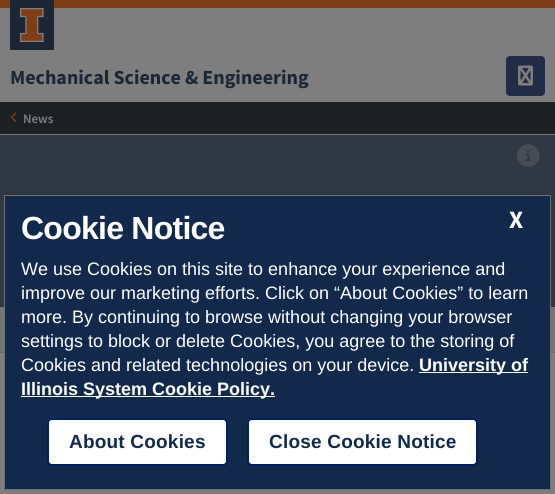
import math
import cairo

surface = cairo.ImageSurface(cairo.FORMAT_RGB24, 555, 494)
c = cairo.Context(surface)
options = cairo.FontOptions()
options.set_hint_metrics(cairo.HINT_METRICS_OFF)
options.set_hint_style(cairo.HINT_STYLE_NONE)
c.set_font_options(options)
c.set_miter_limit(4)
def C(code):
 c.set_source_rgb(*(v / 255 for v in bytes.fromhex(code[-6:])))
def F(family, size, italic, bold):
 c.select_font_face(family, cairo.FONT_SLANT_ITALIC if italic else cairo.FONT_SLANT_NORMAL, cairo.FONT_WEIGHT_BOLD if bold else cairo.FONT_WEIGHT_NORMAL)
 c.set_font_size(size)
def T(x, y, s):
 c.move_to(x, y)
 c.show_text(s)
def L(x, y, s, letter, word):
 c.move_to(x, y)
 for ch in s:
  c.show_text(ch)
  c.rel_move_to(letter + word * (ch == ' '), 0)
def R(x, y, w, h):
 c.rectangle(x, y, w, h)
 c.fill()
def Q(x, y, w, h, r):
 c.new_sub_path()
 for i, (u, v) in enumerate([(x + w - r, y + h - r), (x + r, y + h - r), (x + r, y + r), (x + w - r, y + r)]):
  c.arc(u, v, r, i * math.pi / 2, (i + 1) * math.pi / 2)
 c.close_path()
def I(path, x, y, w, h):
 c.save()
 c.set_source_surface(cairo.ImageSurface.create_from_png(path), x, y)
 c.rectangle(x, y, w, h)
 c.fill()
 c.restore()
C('7e7e7e')
c.paint()
C('7e3c17')
R(0,0,555,8)
C('747576')
R(0,134,555,1)
C('1d2634')
R(10,0,44,50)
I('1.png',20,8,24,34)
F('Source Sans Pro',20,0,1)
T(10,84,'Mechanical Science & Engineering')
C('222c46')
Q(506,56,39,40,4)
c.fill()
I('2.png',518,65,15,21)
C('1d2023')
R(0,102,555,32)
I('3.png',10,112,7,10)
F('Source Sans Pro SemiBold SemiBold',13,0,0)
C('7e7e7e')
T(23,123,'News')
C('303843')
R(0,135,555,172)
I('4.png',517,144,23,23)
C('747576')
R(0,307,555,45)
C('6b6b6b')
R(0,352,555,1)
C('13294b')
c.rectangle(4.5,195.5,546,294)
c.fill_preserve()
C('707070')
c.set_line_width(1)
c.stroke()
F('Liberation Sans',32,0,1)
C('ffffff')
L(21,239,'Cookie Notice',-.75,0)
F('Source Sans Pro',25,0,1)
T(509,228,'X')
F('Liberation Sans',18,0,0)
T(21,275,'We use Cookies on this site to enhance your experience and')
T(21,299,'improve our marketing efforts. Click on “About Cookies” to learn')
T(21,323,'more. By continuing to browse without changing your browser')
T(21,347,'settings to block or delete Cookies, you agree to the storing of')
T(21,371,'Cookies and related technologies on your device.')
R(419,372,109,1)
F('Liberation Sans',18,0,1)
T(419,371,'University of')
R(21,396,254,1)
T(21,395,'Illinois System Cookie Policy.')
Q(48,419,179,46,4)
c.fill_preserve()
C('001e62')
c.set_line_width(2)
c.stroke()
F('Liberation Sans',19,0,1)
C('13294b')
L(69,448,'About Cookies',.2,0)
C('ffffff')
Q(248,419,229,46,4)
c.fill_preserve()
C('001e62')
c.stroke()
C('13294b')
L(269,448,'Close Cookie Notice',.2,0)
surface.write_to_png('o.png')
